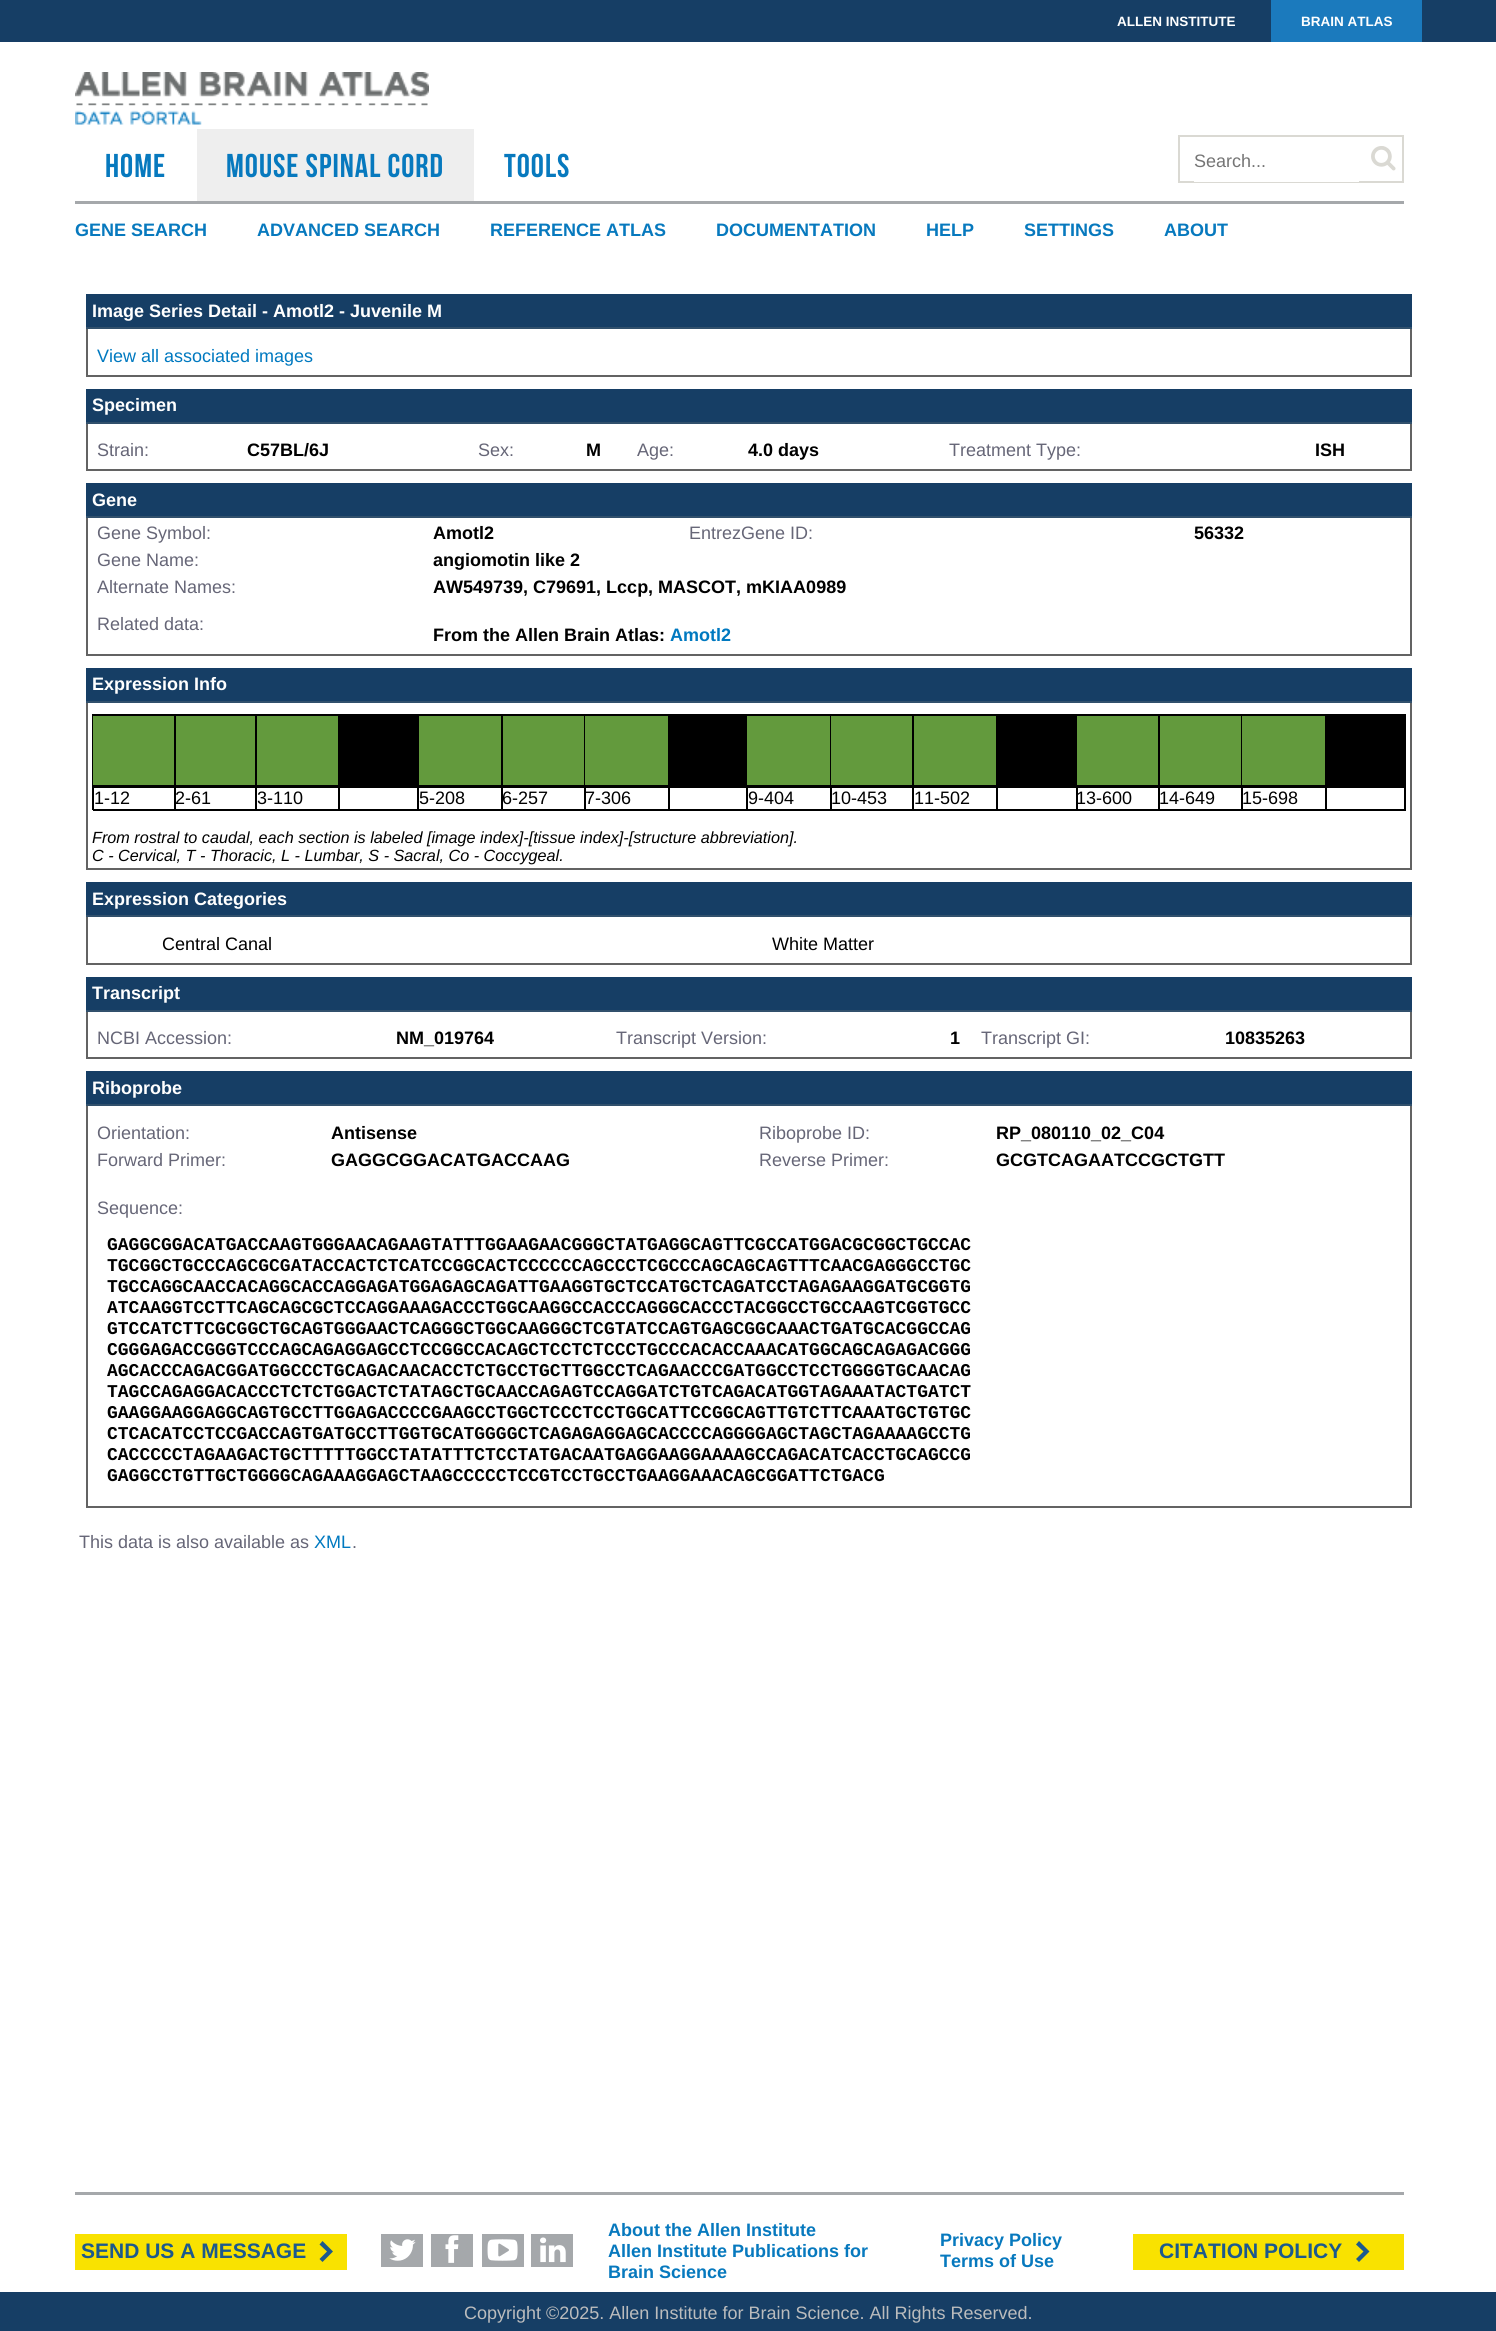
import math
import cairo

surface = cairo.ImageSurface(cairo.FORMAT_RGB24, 1496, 2331)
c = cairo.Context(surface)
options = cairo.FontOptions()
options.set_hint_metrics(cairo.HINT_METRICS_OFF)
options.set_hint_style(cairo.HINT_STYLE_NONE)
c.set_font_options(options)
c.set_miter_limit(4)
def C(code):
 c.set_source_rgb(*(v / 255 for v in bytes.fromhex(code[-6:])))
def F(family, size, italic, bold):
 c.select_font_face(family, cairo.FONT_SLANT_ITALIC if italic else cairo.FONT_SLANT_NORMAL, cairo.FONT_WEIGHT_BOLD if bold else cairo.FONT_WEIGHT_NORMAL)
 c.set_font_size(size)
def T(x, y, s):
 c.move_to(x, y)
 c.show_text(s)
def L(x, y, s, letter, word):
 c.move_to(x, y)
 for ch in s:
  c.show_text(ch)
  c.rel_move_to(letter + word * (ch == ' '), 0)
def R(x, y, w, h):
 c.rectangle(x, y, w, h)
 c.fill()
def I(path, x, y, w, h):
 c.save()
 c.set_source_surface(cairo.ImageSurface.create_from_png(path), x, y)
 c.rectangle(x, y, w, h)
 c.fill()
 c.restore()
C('ffffff')
c.paint()
C('163e65')
R(0,0,1496,42)
F('Liberation Sans',13.5,0,1)
C('ffffff')
T(1117,26,'ALLEN INSTITUTE')
C('1b7abd')
R(1271,0,151,42)
C('ffffff')
T(1301,26,'BRAIN ATLAS')
C('a5a8ab')
R(75,201,1329,3)
I('1.png',75,72,354,53)
F('Bebas Neue',33,0,0)
C('0779be')
L(105,177,'HOME',1,0)
C('eeeeee')
R(197,129,277,72)
C('0779be')
L(226,177,'Mouse Spinal Cord',1,0)
L(504,177,'TOOLS',1,0)
c.rectangle(1179,136,224,46)
C('dad9d3')
c.stroke()
C('ffffff')
R(1194,181,165,1)
F('Liberation Sans',18,0,0)
C('757575')
T(1194,167,'Search...')
I('2.png',1371,146,25,25)
F('Liberation Sans',18,0,1)
C('0779be')
T(75,236,'GENE SEARCH')
T(257,236,'ADVANCED SEARCH')
T(490,236,'REFERENCE ATLAS')
T(716,236,'DOCUMENTATION')
T(926,236,'HELP')
T(1024,236,'SETTINGS')
T(1164,236,'ABOUT')
c.rectangle(87,295,1324,81)
C('636363')
c.stroke()
C('163e65')
R(86,294,1326,33)
C('31506c')
R(86,327,1326,2)
C('ffffff')
T(92,317,'Image Series Detail - Amotl2 - Juvenile M')
F('Liberation Sans',18,0,0)
C('0079c0')
T(97,362,'View all associated images')
c.rectangle(87,390,1324,80)
C('636363')
c.stroke()
C('163e65')
R(86,389,1326,33)
C('31506c')
R(86,422,1326,2)
F('Liberation Sans',18,0,1)
C('ffffff')
T(92,411,'Specimen')
F('Liberation Sans',18,0,0)
C('666677')
T(97,456,'Strain:')
F('Liberation Sans',18,0,1)
C('000000')
T(247,456,'C57BL/6J')
F('Liberation Sans',18,0,0)
C('666677')
T(478,456,'Sex:')
F('Liberation Sans',18,0,1)
C('000000')
T(586,456,'M')
F('Liberation Sans',18,0,0)
C('666677')
T(637,456,'Age:')
F('Liberation Sans',18,0,1)
C('000000')
T(748,456,'4.0 days')
F('Liberation Sans',18,0,0)
C('666677')
T(949,456,'Treatment Type:')
F('Liberation Sans',18,0,1)
C('000000')
T(1315,456,'ISH')
c.rectangle(87,484,1324,171)
C('636363')
c.stroke()
C('163e65')
R(86,483,1326,33)
C('31506c')
R(86,516,1326,2)
C('ffffff')
T(92,506,'Gene')
F('Liberation Sans',18,0,0)
C('666677')
T(97,539,'Gene Symbol:')
F('Liberation Sans',18,0,1)
C('000000')
T(433,539,'Amotl2')
F('Liberation Sans',18,0,0)
C('666677')
T(689,539,'EntrezGene ID:')
F('Liberation Sans',18,0,1)
C('000000')
T(1194,539,'56332')
F('Liberation Sans',18,0,0)
C('666677')
T(97,566,'Gene Name:')
F('Liberation Sans',18,0,1)
C('000000')
T(433,566,'angiomotin like 2')
F('Liberation Sans',18,0,0)
C('666677')
T(97,593,'Alternate Names:')
F('Liberation Sans',18,0,1)
C('000000')
T(433,593,'AW549739, C79691, Lccp, MASCOT, mKIAA0989')
F('Liberation Sans',18,0,0)
C('666677')
T(97,630,'Related data:')
F('Liberation Sans',18,0,1)
C('000000')
T(433,641,'From the Allen Brain Atlas:')
C('0079c0')
T(670,641,'Amotl2')
c.rectangle(87,669,1324,200)
C('636363')
c.stroke()
C('163e65')
R(86,668,1326,33)
C('31506c')
R(86,701,1326,2)
C('ffffff')
T(92,690,'Expression Info')
C('000000')
R(92,714,2,96)
R(93,714,1313,2)
R(174,714,2,72)
R(93,785,83,3)
C('639a3d')
R(93,716,81,69)
C('000000')
R(255,714,2,72)
R(176,785,81,3)
C('639a3d')
R(176,716,79,69)
C('000000')
R(338,714,1,72)
R(257,785,82,3)
C('639a3d')
R(257,716,81,69)
C('000000')
R(417,714,2,72)
R(339,785,80,1)
R(339,716,78,69)
R(501,714,2,72)
R(419,785,84,1)
C('639a3d')
R(419,716,82,69)
C('000000')
R(584,714,1,72)
R(503,785,82,1)
C('639a3d')
R(503,716,81,69)
C('000000')
R(668,714,1,72)
R(585,785,84,1)
C('639a3d')
R(585,716,83,69)
C('000000')
R(746,714,1,72)
R(669,785,78,1)
R(669,716,77,69)
R(830,714,1,72)
R(747,785,84,1)
C('639a3d')
R(747,716,83,69)
C('000000')
R(912,714,2,72)
R(831,785,83,1)
C('639a3d')
R(831,716,81,69)
C('000000')
R(996,714,2,72)
R(914,785,84,1)
C('639a3d')
R(914,716,82,69)
C('000000')
R(1076,714,1,72)
R(998,785,79,1)
R(998,716,78,69)
R(1158,714,2,72)
R(1077,785,83,1)
C('639a3d')
R(1077,716,81,69)
C('000000')
R(1241,714,1,72)
R(1160,785,82,1)
C('639a3d')
R(1160,716,81,69)
C('000000')
R(1325,714,1,72)
R(1242,785,84,1)
C('639a3d')
R(1242,716,83,69)
C('000000')
R(1404,714,2,72)
R(1326,785,80,1)
R(1326,716,78,69)
R(174,786,2,24)
R(93,809,83,2)
F('Liberation Sans',18,0,0)
T(94,804,'1-12')
R(255,786,2,24)
R(176,809,81,2)
T(175,804,'2-61')
R(338,786,2,24)
R(257,809,82,2)
T(257,804,'3-110')
R(339,786,246,2)
R(417,786,2,24)
R(339,809,80,2)
R(584,786,2,24)
R(585,786,84,2)
R(668,786,2,24)
R(669,786,78,2)
R(746,786,2,24)
R(669,809,78,2)
R(747,786,84,2)
R(830,786,2,24)
R(831,786,246,2)
R(1076,786,2,24)
R(998,809,79,2)
R(1077,786,165,2)
R(1241,786,2,24)
R(1242,786,84,2)
R(1325,786,2,24)
R(1326,786,80,2)
R(1404,786,2,24)
R(1326,809,80,2)
R(501,786,2,24)
R(419,809,84,2)
T(419,804,'5-208')
R(503,809,82,2)
T(502,804,'6-257')
R(585,809,84,2)
T(585,804,'7-306')
R(747,809,84,2)
T(748,804,'9-404')
R(912,786,2,24)
R(831,809,83,2)
T(831,804,'10-453')
R(996,786,2,24)
R(914,809,84,2)
T(914,804,'11-502')
R(1158,786,2,24)
R(1077,809,83,2)
T(1076,804,'13-600')
R(1160,809,82,2)
T(1159,804,'14-649')
R(1242,809,84,2)
T(1242,804,'15-698')
F('Liberation Sans',16.2,1,0)
T(92,843,'From rostral to caudal, each section is labeled [image index]-[tissue index]-[structure abbreviation].')
T(92,861,'C - Cervical, T - Thoracic, L - Lumbar, S - Sacral, Co - Coccygeal.')
c.rectangle(87,883,1324,81)
C('636363')
c.stroke()
C('163e65')
R(86,882,1326,33)
C('31506c')
R(86,915,1326,2)
F('Liberation Sans',18,0,1)
C('ffffff')
T(92,905,'Expression Categories')
F('Liberation Sans',18,0,0)
C('000000')
T(162,950,'Central Canal')
T(772,950,'White Matter')
c.rectangle(87,978,1324,80)
C('636363')
c.stroke()
C('163e65')
R(86,977,1326,33)
C('31506c')
R(86,1010,1326,2)
F('Liberation Sans',18,0,1)
C('ffffff')
T(92,999,'Transcript')
F('Liberation Sans',18,0,0)
C('666677')
T(97,1044,'NCBI Accession:')
F('Liberation Sans',18,0,1)
C('000000')
T(396,1044,'NM_019764')
F('Liberation Sans',18,0,0)
C('666677')
T(616,1044,'Transcript Version:')
F('Liberation Sans',18,0,1)
C('000000')
T(950,1044,'1')
F('Liberation Sans',18,0,0)
C('666677')
T(981,1044,'Transcript GI:')
F('Liberation Sans',18,0,1)
C('000000')
T(1225,1044,'10835263')
c.rectangle(87,1072,1324,435)
C('636363')
c.stroke()
C('163e65')
R(86,1071,1326,33)
C('31506c')
R(86,1104,1326,2)
C('ffffff')
T(92,1094,'Riboprobe')
F('Liberation Sans',18,0,0)
C('666677')
T(97,1139,'Orientation:')
F('Liberation Sans',18,0,1)
C('000000')
T(331,1139,'Antisense')
F('Liberation Sans',18,0,0)
C('666677')
T(759,1139,'Riboprobe ID:')
F('Liberation Sans',18,0,1)
C('000000')
T(996,1139,'RP_080110_02_C04')
F('Liberation Sans',18,0,0)
C('666677')
T(97,1166,'Forward Primer:')
F('Liberation Sans',18,0,1)
C('000000')
T(331,1166,'GAGGCGGACATGACCAAG')
F('Liberation Sans',18,0,0)
C('666677')
T(759,1166,'Reverse Primer:')
F('Liberation Sans',18,0,1)
C('000000')
T(996,1166,'GCGTCAGAATCCGCTGTT')
F('Liberation Sans',18,0,0)
C('666677')
T(97,1214,'Sequence:')
F('Liberation Mono',18,0,1)
C('000000')
T(107,1250,'GAGGCGGACATGACCAAGTGGGAACAGAAGTATTTGGAAGAACGGGCTATGAGGCAGTTCGCCATGGACGCGGCTGCCAC')
T(107,1271,'TGCGGCTGCCCAGCGCGATACCACTCTCATCCGGCACTCCCCCCAGCCCTCGCCCAGCAGCAGTTTCAACGAGGGCCTGC')
T(107,1292,'TGCCAGGCAACCACAGGCACCAGGAGATGGAGAGCAGATTGAAGGTGCTCCATGCTCAGATCCTAGAGAAGGATGCGGTG')
T(107,1313,'ATCAAGGTCCTTCAGCAGCGCTCCAGGAAAGACCCTGGCAAGGCCACCCAGGGCACCCTACGGCCTGCCAAGTCGGTGCC')
T(107,1334,'GTCCATCTTCGCGGCTGCAGTGGGAACTCAGGGCTGGCAAGGGCTCGTATCCAGTGAGCGGCAAACTGATGCACGGCCAG')
T(107,1355,'CGGGAGACCGGGTCCCAGCAGAGGAGCCTCCGGCCACAGCTCCTCTCCCTGCCCACACCAAACATGGCAGCAGAGACGGG')
T(107,1376,'AGCACCCAGACGGATGGCCCTGCAGACAACACCTCTGCCTGCTTGGCCTCAGAACCCGATGGCCTCCTGGGGTGCAACAG')
T(107,1397,'TAGCCAGAGGACACCCTCTCTGGACTCTATAGCTGCAACCAGAGTCCAGGATCTGTCAGACATGGTAGAAATACTGATCT')
T(107,1418,'GAAGGAAGGAGGCAGTGCCTTGGAGACCCCGAAGCCTGGCTCCCTCCTGGCATTCCGGCAGTTGTCTTCAAATGCTGTGC')
T(107,1439,'CTCACATCCTCCGACCAGTGATGCCTTGGTGCATGGGGCTCAGAGAGGAGCACCCCAGGGGAGCTAGCTAGAAAAGCCTG')
T(107,1460,'CACCCCCTAGAAGACTGCTTTTTGGCCTATATTTCTCCTATGACAATGAGGAAGGAAAAGCCAGACATCACCTGCAGCCG')
T(107,1481,'GAGGCCTGTTGCTGGGGCAGAAAGGAGCTAAGCCCCCTCCGTCCTGCCTGAAGGAAACAGCGGATTCTGACG')
F('Liberation Sans',18,0,0)
C('666677')
T(79,1548,'This data is also available as')
C('0079c0')
T(314,1548,'XML')
C('666677')
T(352,1548,'.')
C('a5a8ab')
R(75,2192,1329,3)
C('f9e200')
R(75,2234,272,36)
F('Liberation Sans',21,0,1)
C('1c598d')
T(81,2258,'SEND US A MESSAGE')
c.new_path()
c.move_to(319.5,2259)
c.line_to(327,2251.5)
c.line_to(319.5,2244.5)
c.line_to(322.5,2241)
c.line_to(333,2251.5)
c.line_to(322.5,2262)
c.close_path()
c.fill()
C('a5a8ab')
R(381,2234,42,33)
I('3.png',389,2239,27,22)
R(431,2234,42,33)
I('4.png',445,2235,14,28)
R(482,2234,42,33)
I('5.png',487,2239,31,22)
R(531,2234,42,33)
I('6.png',540,2237,26,26)
F('Liberation Sans',18,0,1)
C('0779be')
T(608,2236,'About the Allen Institute')
T(608,2257,'Allen Institute Publications for')
T(608,2278,'Brain Science')
T(940,2246,'Privacy Policy')
T(940,2267,'Terms of Use')
C('f9e200')
R(1133,2234,271,36)
F('Liberation Sans',21,0,1)
C('1c598d')
T(1159,2258,'CITATION POLICY')
c.new_path()
c.move_to(1356,2259)
c.line_to(1363.5,2251.5)
c.line_to(1356,2244.5)
c.line_to(1359,2241)
c.line_to(1369.5,2251.5)
c.line_to(1359,2262)
c.close_path()
c.fill()
C('163e65')
R(0,2292,1496,39)
F('Liberation Sans',18,0,0)
C('bbbcbd')
T(464,2319,'Copyright ©2025. Allen Institute for Brain Science. All Rights Reserved.')
surface.write_to_png('o.png')
